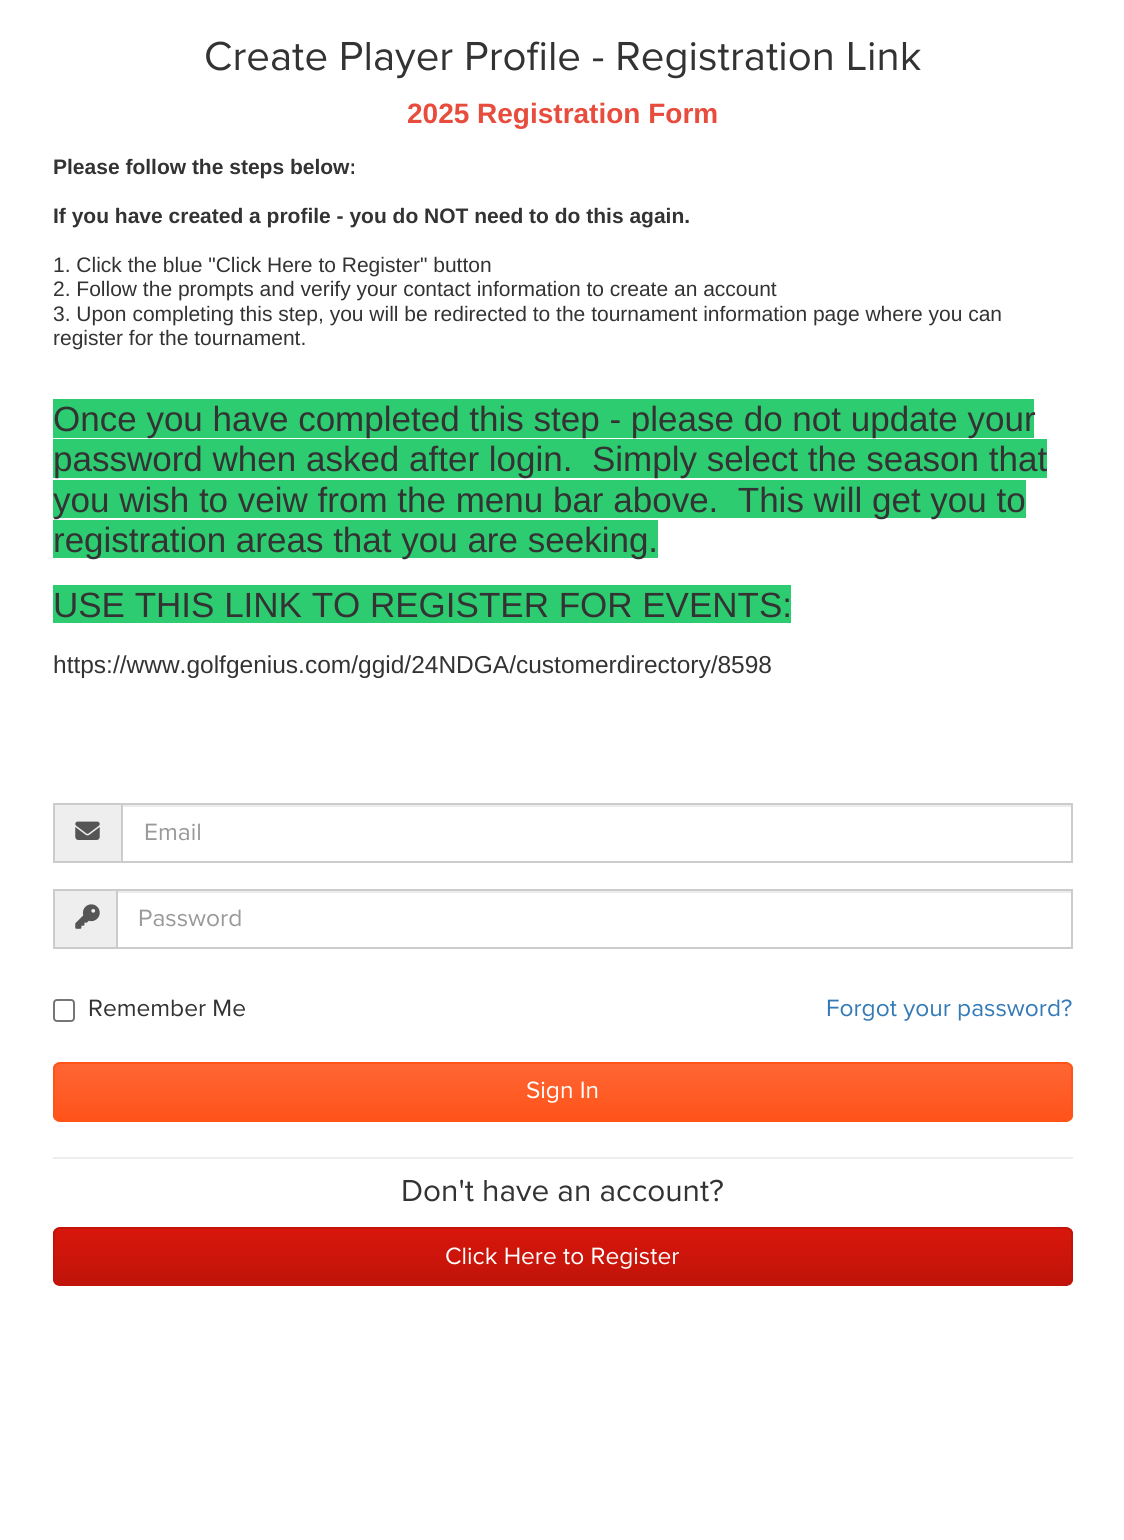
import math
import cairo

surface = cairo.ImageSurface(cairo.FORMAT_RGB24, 1124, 1540)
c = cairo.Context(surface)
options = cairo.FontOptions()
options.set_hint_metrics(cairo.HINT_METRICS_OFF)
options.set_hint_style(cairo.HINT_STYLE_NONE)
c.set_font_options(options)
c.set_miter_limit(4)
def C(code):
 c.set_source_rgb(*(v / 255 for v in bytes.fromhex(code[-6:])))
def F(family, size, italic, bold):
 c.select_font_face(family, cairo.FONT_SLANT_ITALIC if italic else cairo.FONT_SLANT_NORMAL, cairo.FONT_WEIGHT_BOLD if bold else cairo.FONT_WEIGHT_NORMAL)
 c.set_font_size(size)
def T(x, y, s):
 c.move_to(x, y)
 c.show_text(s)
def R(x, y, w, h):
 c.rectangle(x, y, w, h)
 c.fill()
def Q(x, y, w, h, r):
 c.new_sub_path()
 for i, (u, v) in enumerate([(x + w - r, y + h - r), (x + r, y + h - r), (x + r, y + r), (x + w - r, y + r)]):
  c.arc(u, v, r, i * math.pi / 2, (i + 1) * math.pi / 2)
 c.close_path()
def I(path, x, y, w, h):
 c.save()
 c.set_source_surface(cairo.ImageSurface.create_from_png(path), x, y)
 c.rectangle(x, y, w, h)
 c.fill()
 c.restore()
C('ffffff')
c.paint()
F('Proxima Nova',42,0,0)
C('333333')
T(204,70,'Create Player Profile - Registration Link')
F('Liberation Sans',28,0,1)
C('e74c3c')
T(407,123,'2025 Registration Form')
F('Liberation Sans',21,0,1)
C('333333')
T(53,174,'Please follow the steps below:')
T(53,223,'If you have created a profile - you do NOT need to do this again.')
F('Liberation Sans',21,0,0)
T(53,272,'1. Click the blue "Click Here to Register" button')
T(53,296,'2. Follow the prompts and verify your contact information to create an account')
T(53,321,'3. Upon completing this step, you will be redirected to the tournament information page where you can')
T(53,345,'register for the tournament.')
C('2ecc71')
R(53,399,981,39)
F('Liberation Sans',35,0,0)
C('333333')
T(53,431,'Once you have completed this step - please do not update your')
C('2ecc71')
R(53,439,994,39)
C('333333')
T(53,471,'password when asked after login.  Simply select the season that')
C('2ecc71')
R(53,480,973,38)
C('333333')
T(53,512,'you wish to veiw from the menu bar above.  This will get you to')
C('2ecc71')
R(53,520,605,38)
C('333333')
T(53,552,'registration areas that you are seeking.')
C('2ecc71')
R(53,585,738,38)
C('333333')
T(53,617,'USE THIS LINK TO REGISTER FOR EVENTS:')
F('Liberation Sans',24.5,0,0)
T(53,673,'https://www.golfgenius.com/ggid/24NDGA/customerdirectory/8598')
C('eeeeee')
R(55,805,66,56)
C('cccccc')
R(53,803,68,2)
R(53,861,68,2)
R(53,803,2,60)
I('1.png',75,821,25,19)
C('ececec')
R(123,805,948,2)
c.rectangle(122,804,950,58)
C('cccccc')
c.stroke()
F('Proxima Nova',24.5,0,0)
C('999999')
T(144,840,'Email')
C('eeeeee')
R(55,891,61,56)
C('cccccc')
R(53,889,63,2)
R(53,947,63,2)
R(53,889,2,60)
I('2.png',75,904,25,25)
C('ececec')
R(117,891,954,2)
c.rectangle(117,890,955,58)
C('cccccc')
c.stroke()
C('999999')
T(138,926,'Password')
Q(54,1000,20,21,3)
C('767676')
c.stroke()
C('333333')
T(88,1016,'Remember Me')
C('337ab7')
T(826,1016,'Forgot your password?')
c.save()
Q(53,1062,1020,60,7)
c.clip()
gradient = cairo.LinearGradient(563,1064,563,1120)
gradient.add_color_stop_rgba(0,1,0.4,0.2,1)
gradient.add_color_stop_rgba(1,1,0.325,0.102,1)
c.set_source(gradient)
R(53,1064,1020,56)
c.restore()
Q(54,1063,1018,58,6)
C('ff531a')
c.stroke()
C('ffffff')
T(526,1098,'Sign In')
C('eeeeee')
R(53,1157,1020,2)
F('Proxima Nova',31.5,0,0)
C('333333')
T(401,1201,'Don\'t have an account?')
c.save()
Q(53,1227,1020,59,7)
c.clip()
gradient = cairo.LinearGradient(563,1229,563,1285)
gradient.add_color_stop_rgba(0,0.847,0.086,0.043,1)
gradient.add_color_stop_rgba(1,0.753,0.078,0.039,1)
c.set_source(gradient)
R(53,1229,1020,56)
c.restore()
Q(54,1228,1018,57,6)
C('c0140a')
c.stroke()
F('Proxima Nova',24.5,0,0)
C('ffffff')
T(445,1264,'Click Here to Register')
surface.write_to_png('o.png')
